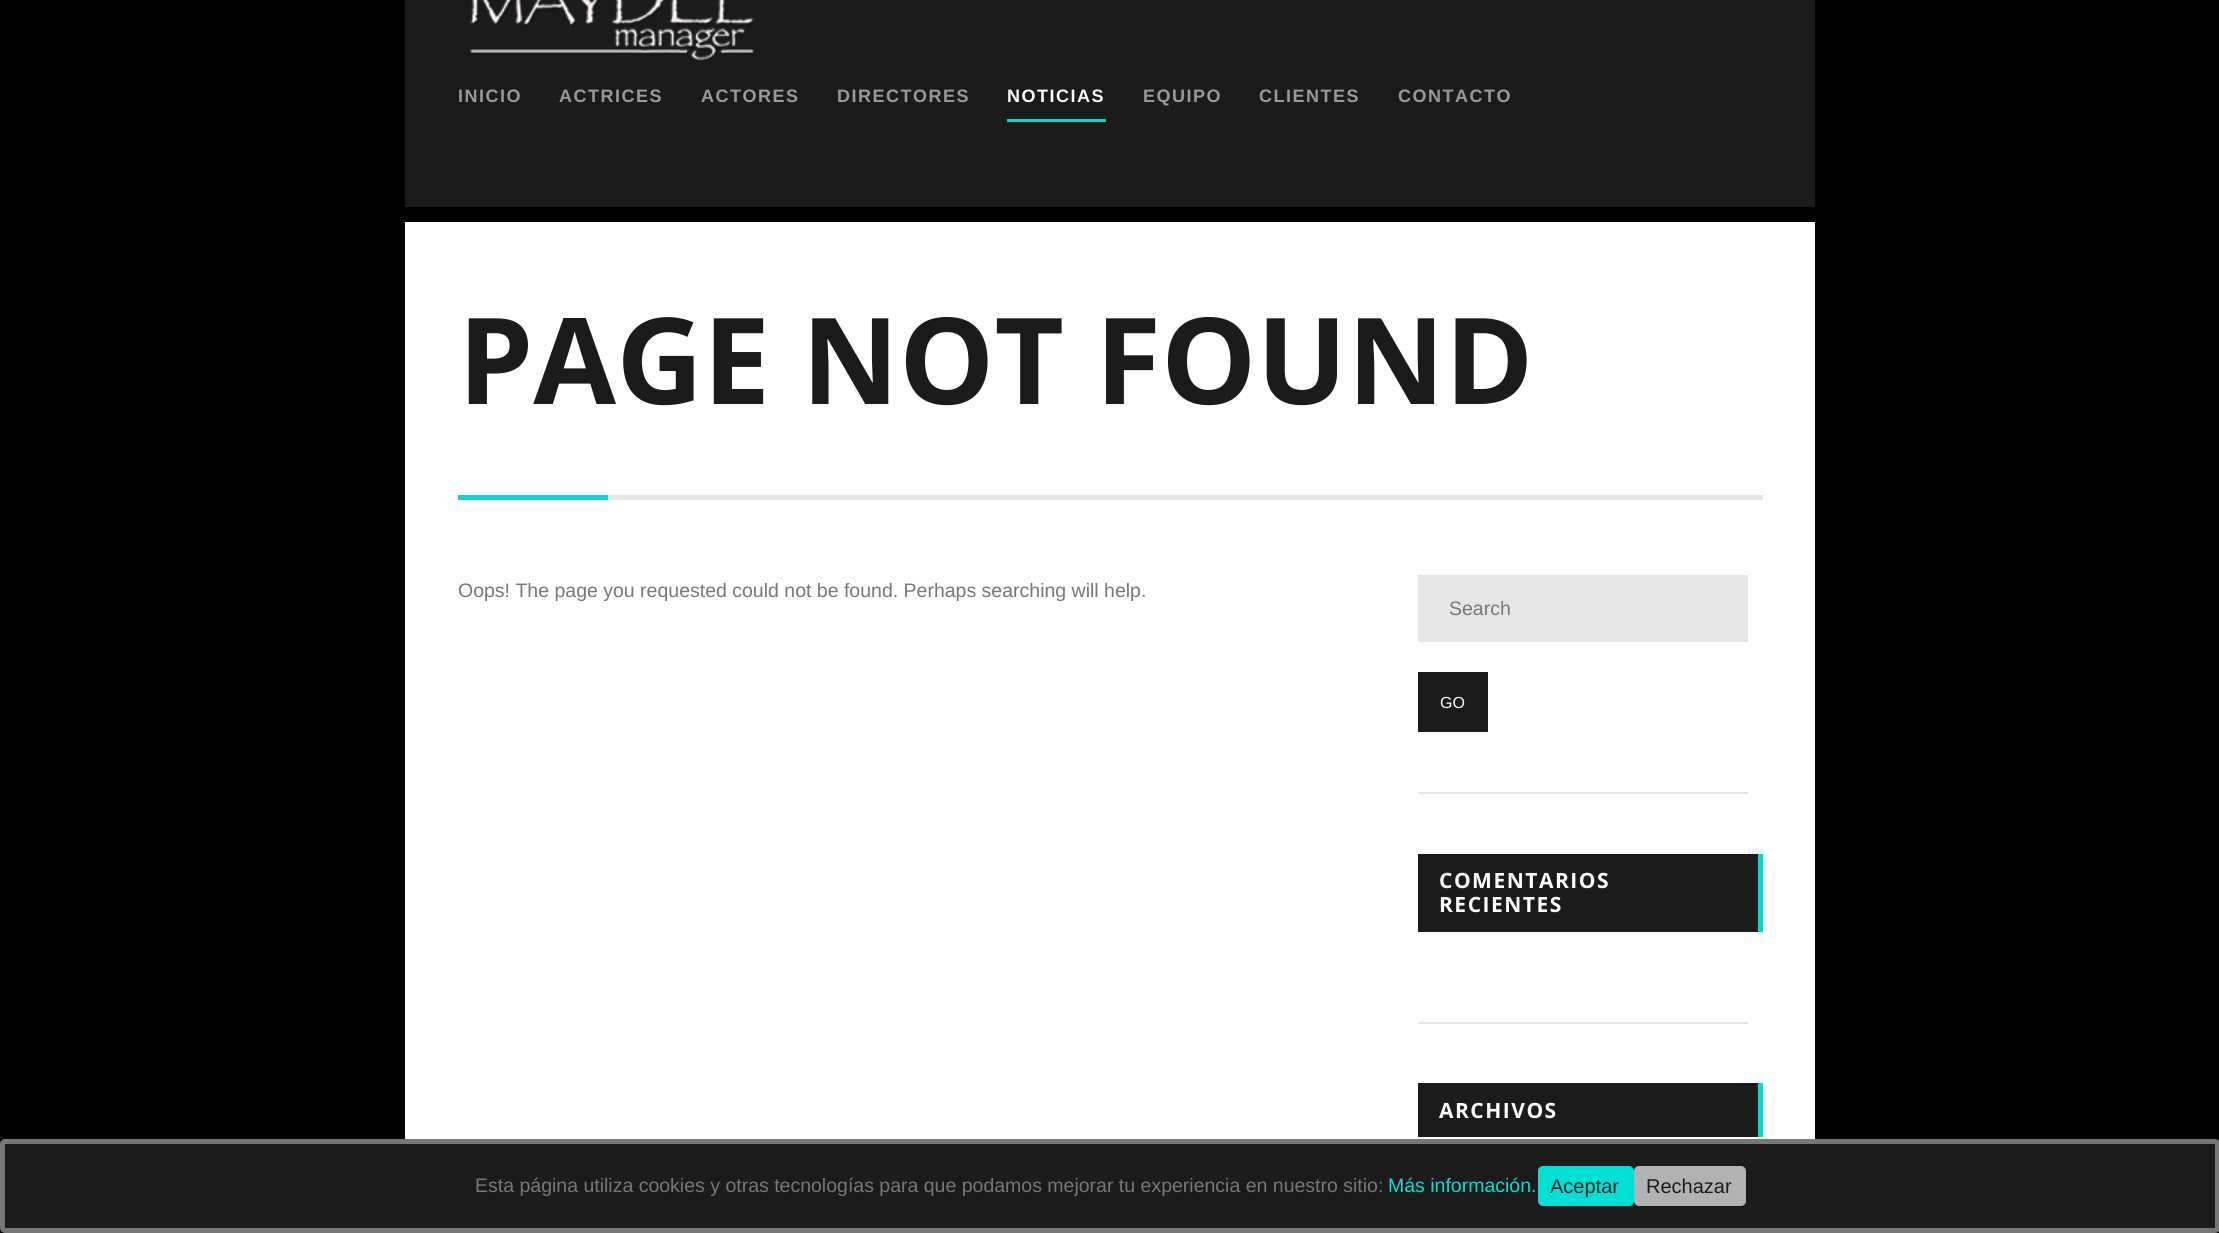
import math
import cairo

surface = cairo.ImageSurface(cairo.FORMAT_RGB24, 2219, 1233)
c = cairo.Context(surface)
options = cairo.FontOptions()
options.set_hint_metrics(cairo.HINT_METRICS_OFF)
options.set_hint_style(cairo.HINT_STYLE_NONE)
c.set_font_options(options)
c.set_miter_limit(4)
def C(code):
 c.set_source_rgb(*(v / 255 for v in bytes.fromhex(code[-6:])))
def F(family, size, italic, bold):
 c.select_font_face(family, cairo.FONT_SLANT_ITALIC if italic else cairo.FONT_SLANT_NORMAL, cairo.FONT_WEIGHT_BOLD if bold else cairo.FONT_WEIGHT_NORMAL)
 c.set_font_size(size)
def T(x, y, s):
 c.move_to(x, y)
 c.show_text(s)
def L(x, y, s, letter, word):
 c.move_to(x, y)
 for ch in s:
  c.show_text(ch)
  c.rel_move_to(letter + word * (ch == ' '), 0)
def R(x, y, w, h):
 c.rectangle(x, y, w, h)
 c.fill()
def Q(x, y, w, h, r):
 c.new_sub_path()
 for i, (u, v) in enumerate([(x + w - r, y + h - r), (x + r, y + h - r), (x + r, y + r), (x + w - r, y + r)]):
  c.arc(u, v, r, i * math.pi / 2, (i + 1) * math.pi / 2)
 c.close_path()
def I(path, x, y, w, h):
 c.save()
 c.set_source_surface(cairo.ImageSurface.create_from_png(path), x, y)
 c.rectangle(x, y, w, h)
 c.fill()
 c.restore()
C('000000')
c.paint()
C('1b1b1b')
R(405,0,1410,207)
I('1.png',469,0,285,62)
F('Liberation Sans',18,0,1)
C('999999')
L(458,102,'INICIO',1.5,0)
L(559,102,'ACTRICES',1.5,0)
L(701,102,'ACTORES',1.5,0)
L(837,102,'DIRECTORES',1.5,0)
C('00dace')
R(1007,119,99,3)
C('ffffff')
L(1007,102,'NOTICIAS',1.5,0)
C('999999')
L(1143,102,'EQUIPO',1.5,0)
L(1259,102,'CLIENTES',1.5,0)
L(1398,102,'CONTACTO',1.5,0)
C('ffffff')
R(405,222,1410,917)
C('e6e6e6')
R(608,495,1155,5)
F('Open Sans',120,0,1)
C('1b1b1b')
T(458,404,'PAGE NOT FOUND')
C('00dace')
R(458,495,150,5)
F('Liberation Sans',19.5,0,0)
C('777777')
T(458,597,'Oops! The page you requested could not be found. Perhaps searching will help.')
C('e6e6e6')
R(1418,792,330,2)
R(1418,575,330,67)
C('777777')
T(1449,615,'Search')
C('1b1b1b')
R(1418,672,70,60)
F('Liberation Sans',16,0,0)
C('ffffff')
T(1440,708,'GO')
C('e6e6e6')
R(1418,1022,330,2)
C('1b1b1b')
R(1418,854,340,78)
F('Open Sans',21,0,1)
C('ffffff')
L(1439,888,'COMENTARIOS',1.5,0)
C('00dace')
R(1758,854,5,78)
C('ffffff')
L(1439,912,'RECIENTES',1.5,0)
C('1b1b1b')
R(1418,1083,340,54)
C('ffffff')
L(1439,1118,'ARCHIVOS',1.5,0)
C('00dace')
R(1758,1083,5,54)
C('1b1b1b')
Q(2.5,1141.5,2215,89,2.5)
c.fill_preserve()
C('777777')
c.set_line_width(5)
c.stroke()
F('Liberation Sans',19.5,0,0)
T(475,1192,'Esta página utiliza cookies y otras tecnologías para que podamos mejorar tu experiencia en nuestro sitio:')
C('00e1d6')
T(1388,1192,'Más información.')
Q(1538,1166,96,40,5)
c.fill()
F('Liberation Sans',20,0,0)
C('1b1b1b')
T(1550,1193,'Aceptar')
C('b2b2b2')
Q(1634,1166,112,40,5)
c.fill()
C('1b1b1b')
T(1646,1193,'Rechazar')
surface.write_to_png('o.png')
